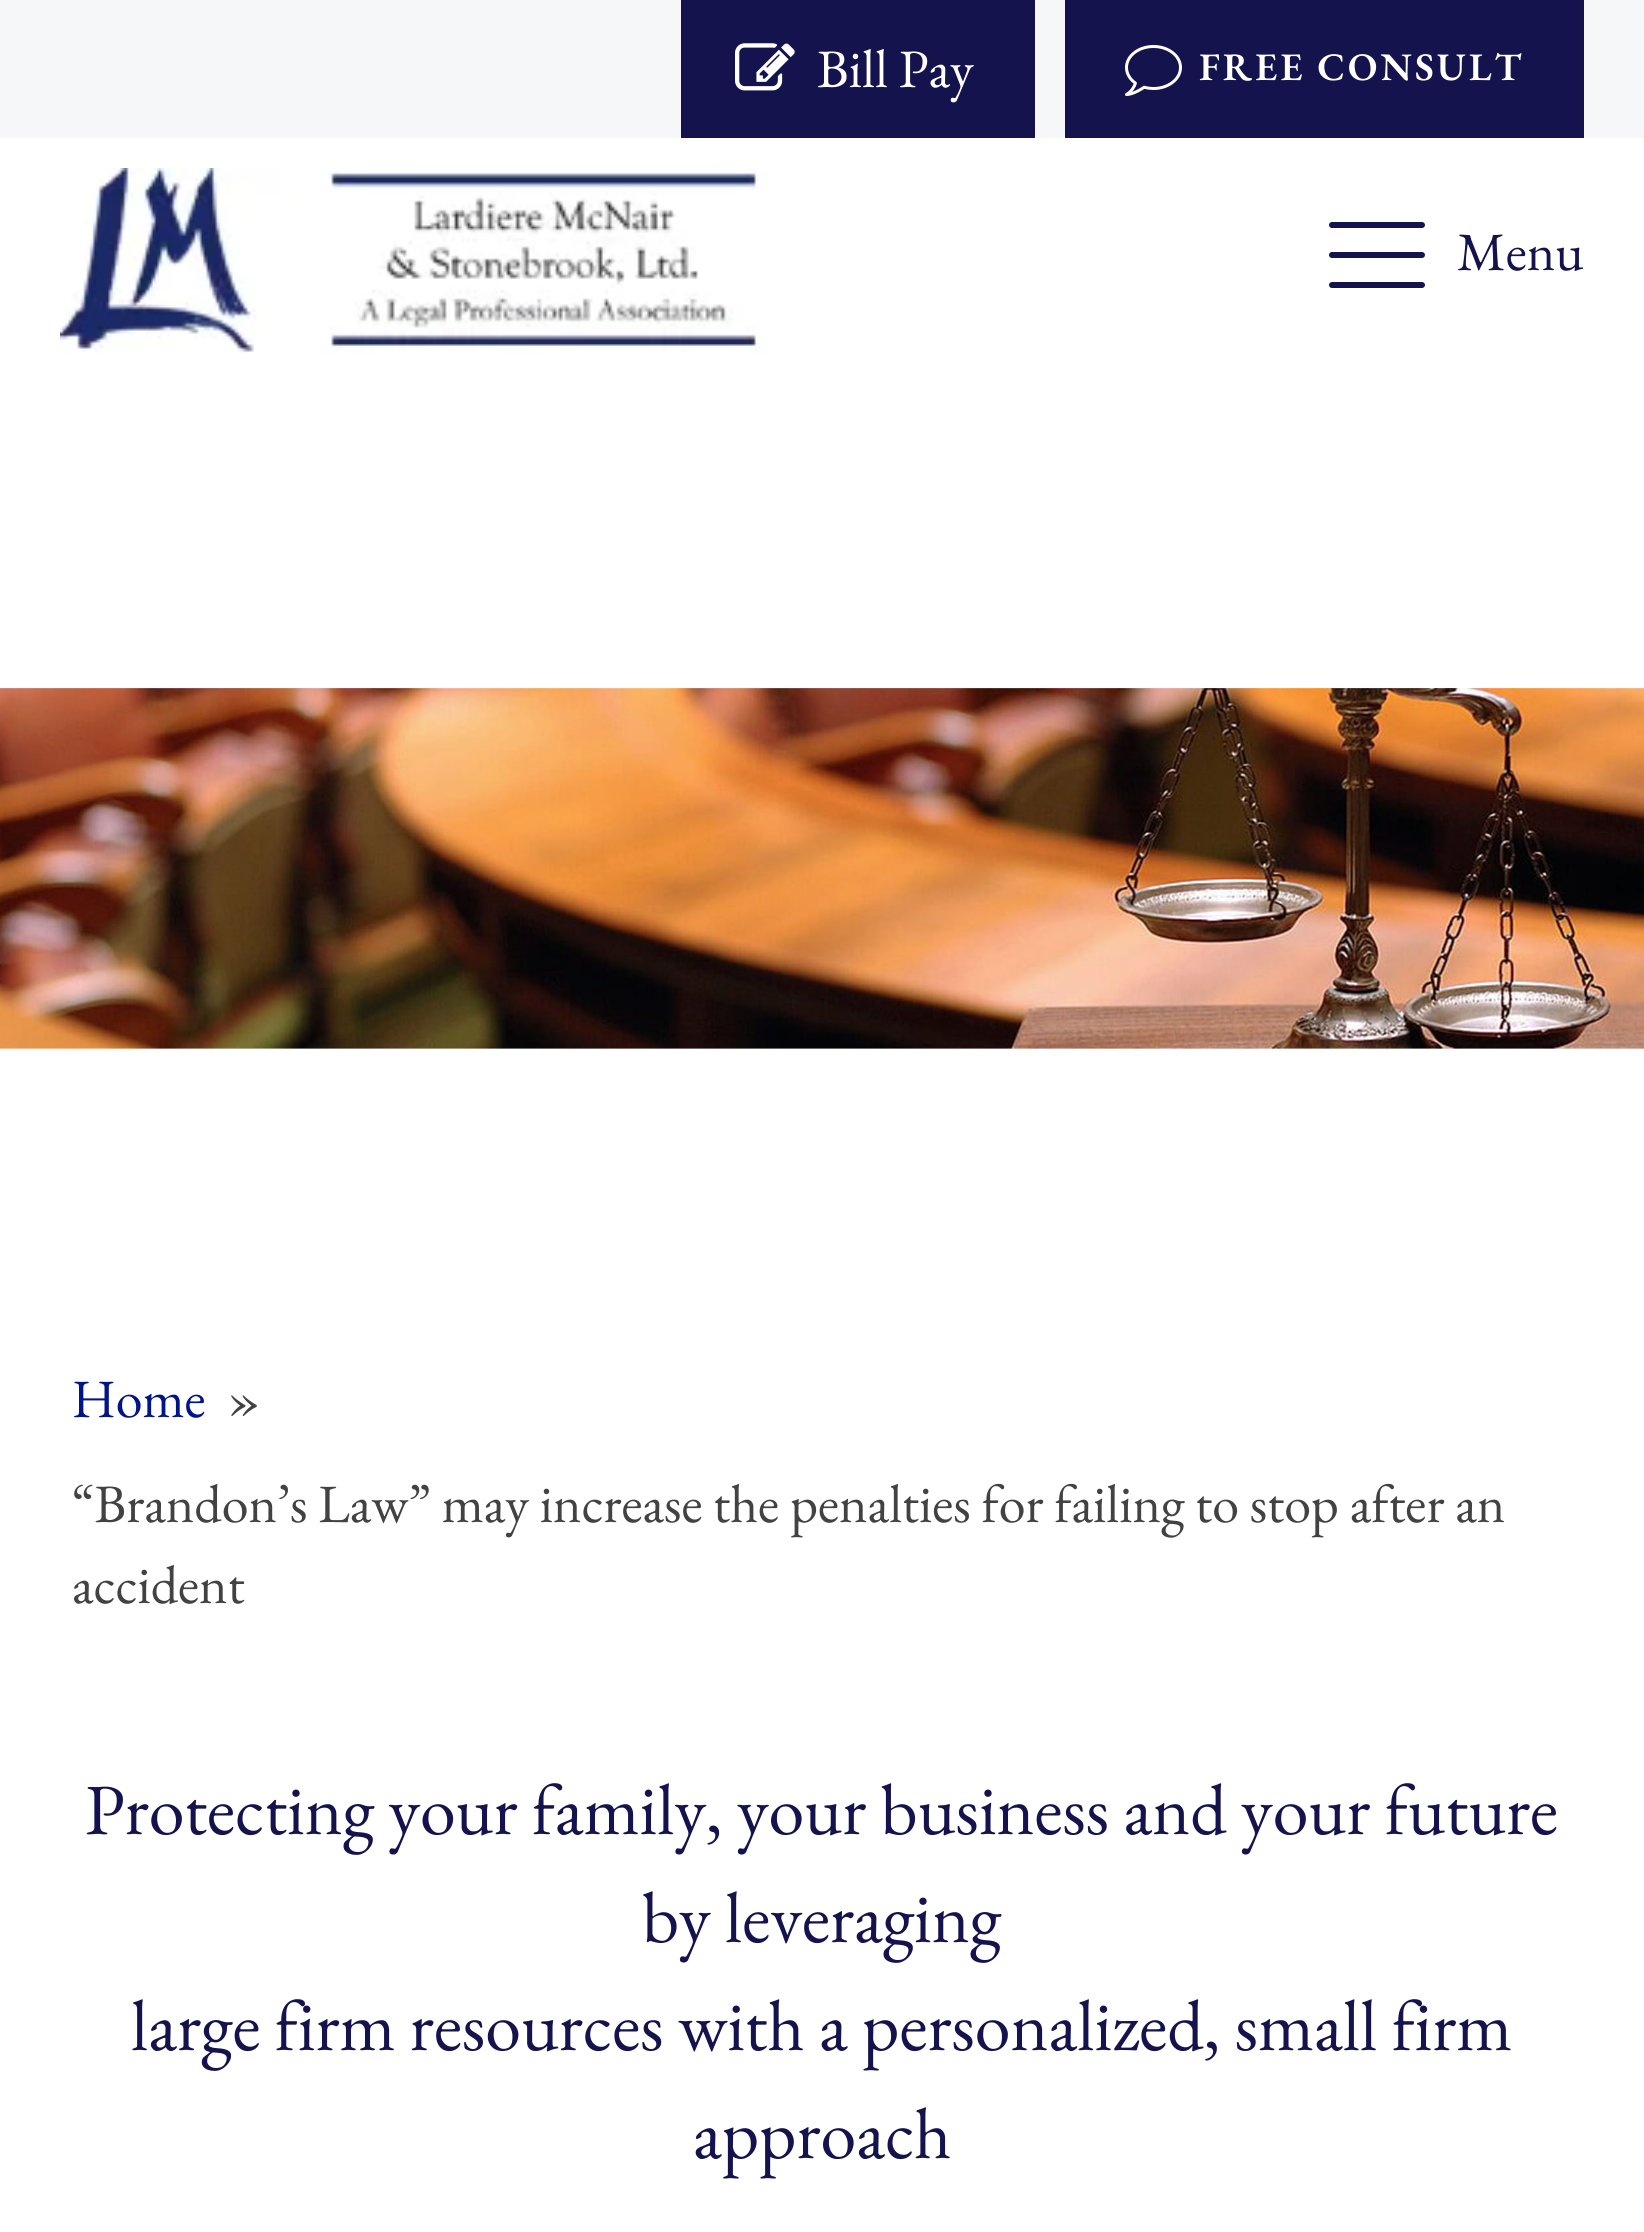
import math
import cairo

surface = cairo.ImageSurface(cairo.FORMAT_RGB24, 1644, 2232)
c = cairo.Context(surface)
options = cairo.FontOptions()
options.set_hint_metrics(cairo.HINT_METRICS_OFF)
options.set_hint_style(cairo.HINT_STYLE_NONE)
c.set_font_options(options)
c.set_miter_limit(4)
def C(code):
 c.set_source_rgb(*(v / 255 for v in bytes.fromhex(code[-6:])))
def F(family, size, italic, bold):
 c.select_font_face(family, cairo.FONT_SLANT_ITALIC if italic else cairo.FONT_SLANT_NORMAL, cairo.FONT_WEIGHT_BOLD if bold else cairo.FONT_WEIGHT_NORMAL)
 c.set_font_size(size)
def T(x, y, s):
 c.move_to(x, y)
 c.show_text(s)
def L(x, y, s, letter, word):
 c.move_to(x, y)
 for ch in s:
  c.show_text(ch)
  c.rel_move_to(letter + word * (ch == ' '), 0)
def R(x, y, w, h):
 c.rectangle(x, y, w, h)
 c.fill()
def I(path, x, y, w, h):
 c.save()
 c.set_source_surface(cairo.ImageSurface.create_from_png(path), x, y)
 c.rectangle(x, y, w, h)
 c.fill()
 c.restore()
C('ffffff')
c.paint()
C('f6f7f8')
R(0,0,1644,138)
C('14134d')
R(681,0,354,138)
I('1.png',735,43,60,48)
F('EB Garamond',54,0,0)
C('ffffff')
T(817,87,'Bill Pay')
C('14134d')
R(1065,0,519,138)
I('2.png',1125,45,57,51)
F('EB Garamond SemiBold',39,0,0)
C('ffffff')
L(1199,80,'FREE CONSULT',3,0)
I('3.png',60,168,710,186)
I('4.png',1329,222,96,66)
F('EB Garamond',54,0,0)
C('14134d')
T(1457,270,'Menu')
I('5.png',0,687,1644,365)
C('001489')
T(72,1417,'Home')
C('424242')
T(228,1417,'»')
T(72,1522,'“Brandon’s Law” may increase the penalties for failing to stop after an')
T(72,1603,'accident')
F('EB Garamond',72,0,0)
C('14134d')
T(85,1834,'Protecting your family, your business and your future')
T(642,1942,'by leveraging')
T(131,2050,'large firm resources with a personalized, small firm')
T(693,2158,'approach')
surface.write_to_png('o.png')
